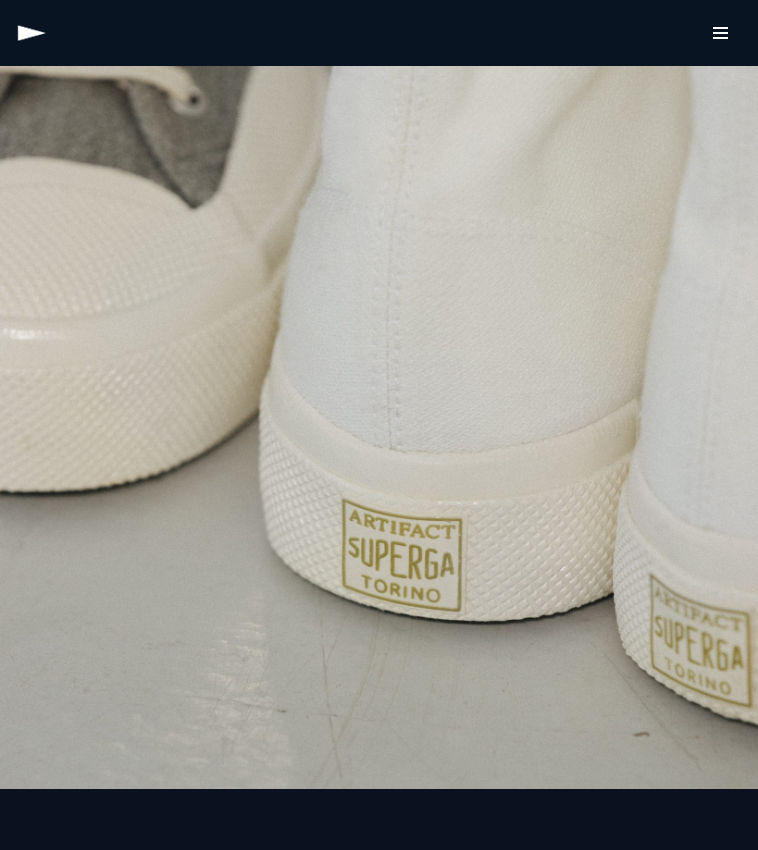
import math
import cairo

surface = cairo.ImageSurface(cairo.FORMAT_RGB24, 758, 850)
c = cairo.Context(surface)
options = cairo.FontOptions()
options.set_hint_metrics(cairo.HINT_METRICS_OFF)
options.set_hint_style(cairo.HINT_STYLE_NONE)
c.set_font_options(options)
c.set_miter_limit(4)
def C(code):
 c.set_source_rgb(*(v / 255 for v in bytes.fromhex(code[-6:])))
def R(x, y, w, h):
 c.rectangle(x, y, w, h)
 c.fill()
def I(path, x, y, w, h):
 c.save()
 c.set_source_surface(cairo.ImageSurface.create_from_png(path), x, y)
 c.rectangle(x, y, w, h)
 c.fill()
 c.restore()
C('0b111e')
c.paint()
C('091423')
R(0,0,758,66)
I('1.png',17,25,29,16)
C('ffffff')
R(713,27,15,2)
R(713,32,15,2)
R(713,37,15,2)
I('2.png',0,66,758,723)
surface.write_to_png('o.png')
